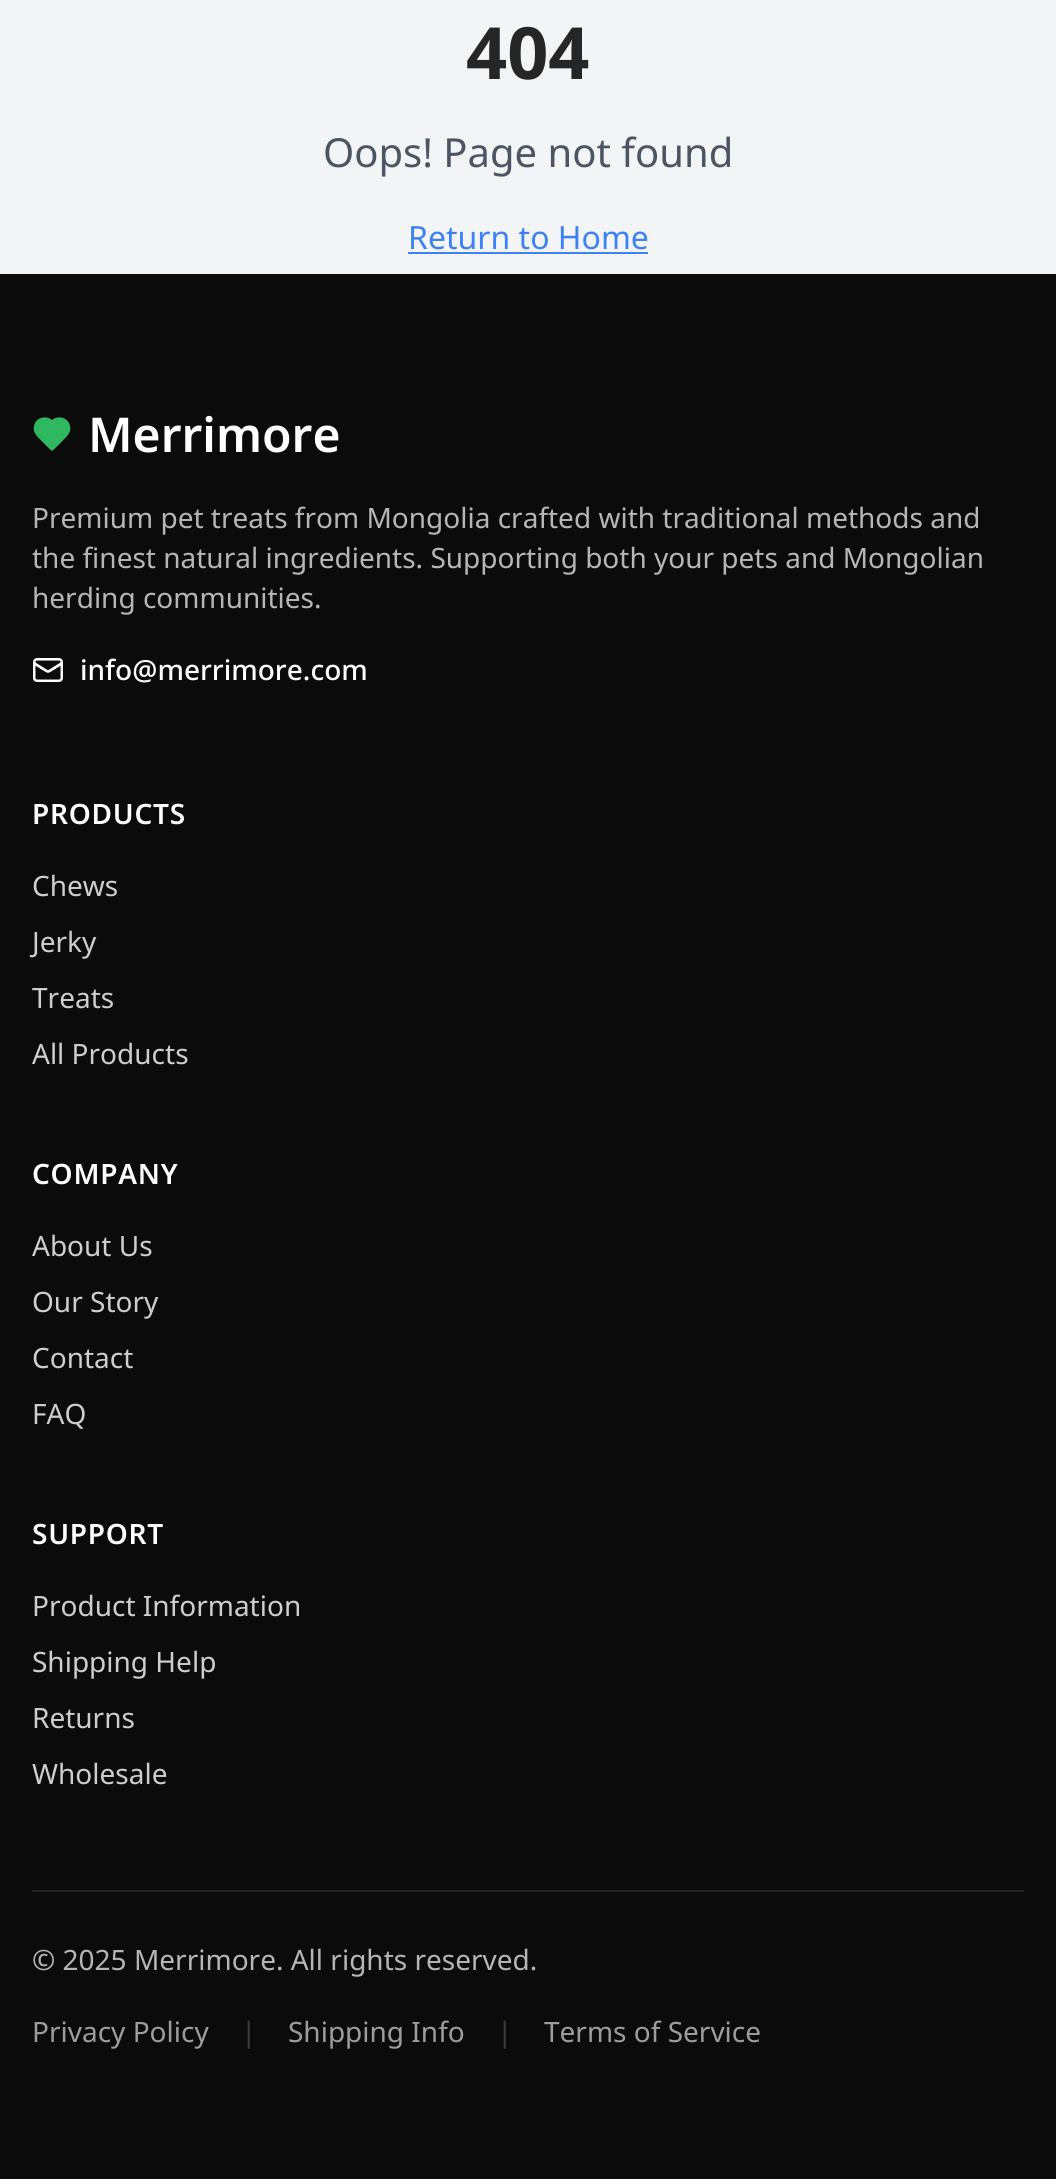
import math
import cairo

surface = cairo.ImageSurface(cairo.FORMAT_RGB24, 1056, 2179)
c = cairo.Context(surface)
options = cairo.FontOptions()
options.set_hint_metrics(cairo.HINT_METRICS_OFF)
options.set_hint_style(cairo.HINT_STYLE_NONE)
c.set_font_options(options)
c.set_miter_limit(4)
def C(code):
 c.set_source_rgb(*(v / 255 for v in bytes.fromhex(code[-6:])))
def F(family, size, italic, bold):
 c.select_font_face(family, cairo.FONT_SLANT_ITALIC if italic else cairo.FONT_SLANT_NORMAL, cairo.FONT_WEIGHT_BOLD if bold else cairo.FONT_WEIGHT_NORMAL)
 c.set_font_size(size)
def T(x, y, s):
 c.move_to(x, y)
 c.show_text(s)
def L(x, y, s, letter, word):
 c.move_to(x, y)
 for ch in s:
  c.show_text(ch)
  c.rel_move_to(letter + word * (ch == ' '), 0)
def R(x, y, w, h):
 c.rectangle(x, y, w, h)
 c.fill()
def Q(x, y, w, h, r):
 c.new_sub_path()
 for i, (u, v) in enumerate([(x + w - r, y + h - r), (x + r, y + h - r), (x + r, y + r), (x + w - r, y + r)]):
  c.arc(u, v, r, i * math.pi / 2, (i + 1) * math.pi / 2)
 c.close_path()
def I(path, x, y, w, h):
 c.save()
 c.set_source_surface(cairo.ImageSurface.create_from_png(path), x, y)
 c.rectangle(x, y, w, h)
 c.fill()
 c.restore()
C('f3f4f6')
c.paint()
F('Noto Sans',72,0,1)
C('262626')
T(466,79,'404')
F('Noto Sans',40,0,0)
C('4b5563')
T(323,167,'Oops! Page not found')
F('Noto Sans',32,0,0)
C('3b82f6')
T(408,249,'Return to Home')
R(408,252,240,2)
C('0b0b0b')
R(0,274,1056,1905)
I('1.png',33,417,38,34)
F('Noto Sans SemiBold',48,0,0)
C('ffffff')
T(88,452,'Merrimore')
F('Noto Sans',28,0,0)
C('b6b6b6')
T(32,528,'Premium pet treats from Mongolia crafted with traditional methods and')
T(32,568,'the finest natural ingredients. Supporting both your pets and Mongolian')
T(32,608,'herding communities.')
Q(34.25,659.25,27.5,21.5,2.75)
C('ffffff')
c.set_line_width(2.5)
c.stroke()
c.new_path()
c.move_to(61.5,663.5)
c.line_to(49.5,671)
c.curve_to(48.5,671.5,47.5,671.5,46.5,671)
c.line_to(34.5,663.5)
c.set_line_width(2.7)
c.set_line_cap(cairo.LINE_CAP_ROUND)
c.set_line_join(cairo.LINE_JOIN_ROUND)
c.stroke()
F('Noto Sans Medium',28,0,0)
T(80,680,'info@merrimore.com')
F('Noto Sans SemiBold',28,0,0)
L(32,824,'PRODUCTS',.75,0)
F('Noto Sans',28,0,0)
C('cecece')
T(32,896,'Chews')
T(32,952,'Jerky')
T(32,1008,'Treats')
T(32,1064,'All Products')
F('Noto Sans SemiBold',28,0,0)
C('ffffff')
L(32,1184,'COMPANY',.75,0)
F('Noto Sans',28,0,0)
C('cecece')
T(32,1256,'About Us')
T(32,1312,'Our Story')
T(32,1368,'Contact')
T(32,1424,'FAQ')
F('Noto Sans SemiBold',28,0,0)
C('ffffff')
L(32,1544,'SUPPORT',.75,0)
F('Noto Sans',28,0,0)
C('cecece')
T(32,1616,'Product Information')
T(32,1672,'Shipping Help')
T(32,1728,'Returns')
T(32,1784,'Wholesale')
C('232323')
R(32,1890,992,2)
C('b6b6b6')
T(32,1970,'© 2025 Merrimore. All rights reserved.')
C('9d9d9d')
T(32,2042,'Privacy Policy')
C('3c3c3c')
T(241,2042,'|')
C('9d9d9d')
T(288,2042,'Shipping Info')
C('3c3c3c')
T(497,2042,'|')
C('9d9d9d')
T(544,2042,'Terms of Service')
surface.write_to_png('o.png')
